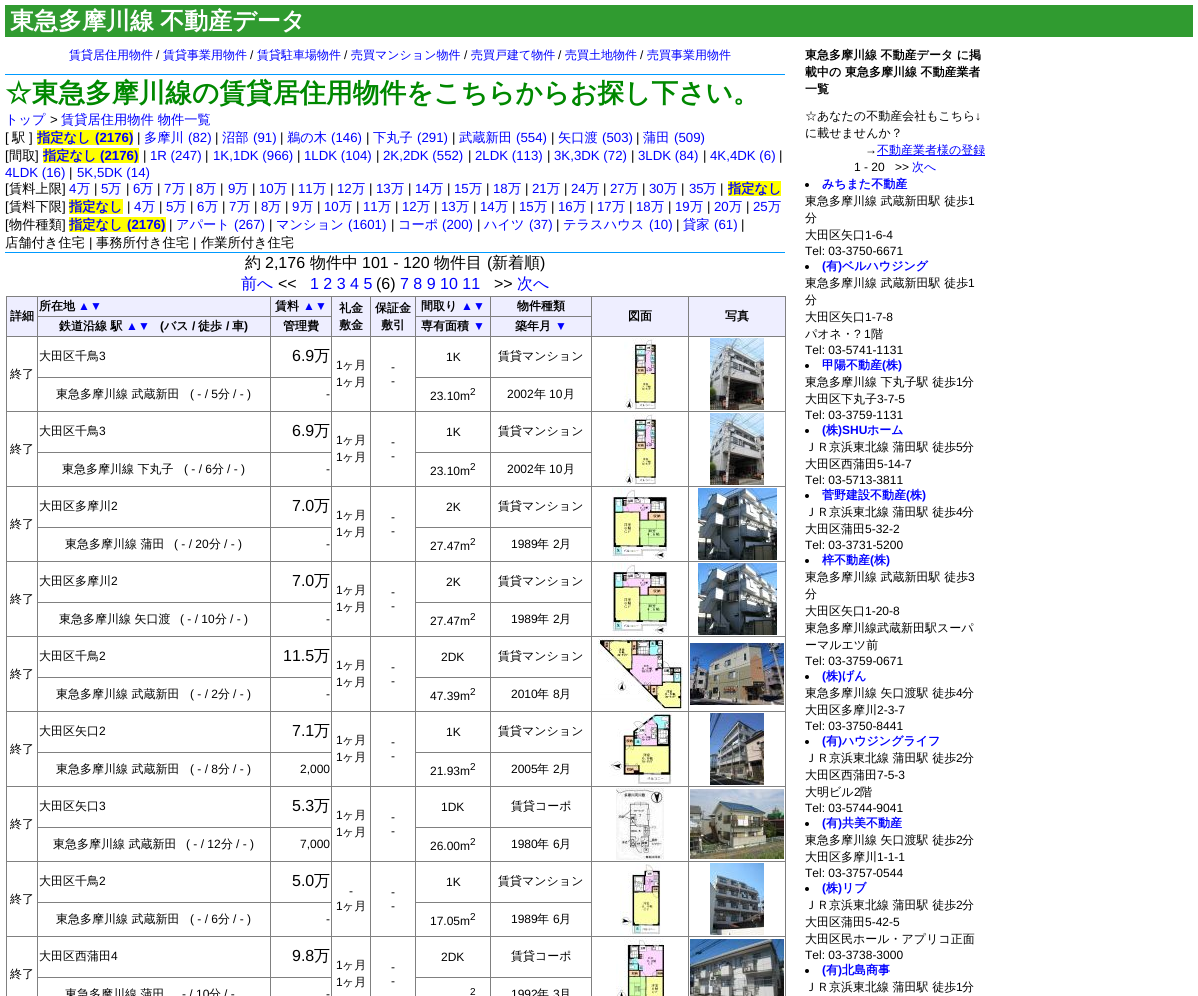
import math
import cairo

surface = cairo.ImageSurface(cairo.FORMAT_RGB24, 1198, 996)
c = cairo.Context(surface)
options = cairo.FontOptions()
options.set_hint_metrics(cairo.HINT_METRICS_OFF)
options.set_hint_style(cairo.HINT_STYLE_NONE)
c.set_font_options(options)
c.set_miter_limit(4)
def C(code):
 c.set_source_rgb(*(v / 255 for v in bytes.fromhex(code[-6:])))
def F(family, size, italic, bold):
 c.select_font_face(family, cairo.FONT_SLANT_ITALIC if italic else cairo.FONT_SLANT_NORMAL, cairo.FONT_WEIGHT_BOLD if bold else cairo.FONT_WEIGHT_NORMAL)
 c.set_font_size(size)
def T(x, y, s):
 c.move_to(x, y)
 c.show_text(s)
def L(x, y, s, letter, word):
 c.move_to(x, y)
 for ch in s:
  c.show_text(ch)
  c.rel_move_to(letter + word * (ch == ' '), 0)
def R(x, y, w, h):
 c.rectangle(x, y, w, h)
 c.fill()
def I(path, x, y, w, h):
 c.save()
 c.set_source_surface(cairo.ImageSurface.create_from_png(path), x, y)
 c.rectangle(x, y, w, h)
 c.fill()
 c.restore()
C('ffffff')
c.paint()
C('309b30')
R(5,5,1188,32)
F('WenQuanYi Zen Hei',24,0,1)
C('ffffff')
L(10,29,'東急多摩川線 不動産データ',0,-1)
F('WenQuanYi Zen Hei Medium',12,0,0)
C('0000ff')
T(69,59,'賃貸居住用物件')
F('Liberation Sans',12,0,0)
C('000000')
T(156,59,'/')
F('WenQuanYi Zen Hei Medium',12,0,0)
C('0000ff')
T(163,59,'賃貸事業用物件')
F('Liberation Sans',12,0,0)
C('000000')
T(250,59,'/')
F('WenQuanYi Zen Hei Medium',12,0,0)
C('0000ff')
T(257,59,'賃貸駐車場物件')
F('Liberation Sans',12,0,0)
C('000000')
T(344,59,'/')
F('WenQuanYi Zen Hei Medium',12,0,0)
C('0000ff')
T(351,59,'売買マンション物件')
F('Liberation Sans',12,0,0)
C('000000')
T(464,59,'/')
F('WenQuanYi Zen Hei Medium',12,0,0)
C('0000ff')
T(471,59,'売買戸建て物件')
F('Liberation Sans',12,0,0)
C('000000')
T(558,59,'/')
F('WenQuanYi Zen Hei Medium',12,0,0)
C('0000ff')
T(565,59,'売買土地物件')
F('Liberation Sans',12,0,0)
C('000000')
T(640,59,'/')
F('WenQuanYi Zen Hei Medium',12,0,0)
C('0000ff')
T(647,59,'売買事業用物件')
C('009aff')
R(5,74,780,1)
R(5,252,780,1)
F('WenQuanYi Zen Hei',26.7,0,1)
C('008800')
T(5,102,'☆東急多摩川線の賃貸居住用物件をこちらからお探し下さい。')
F('WenQuanYi Zen Hei Medium',13.25,0,0)
C('0000ff')
T(5,124,'トップ')
F('Liberation Sans',13.25,0,0)
C('000000')
T(50,124,'>')
F('WenQuanYi Zen Hei Medium',13.25,0,0)
C('0000ff')
T(61,124,'賃貸居住用物件 物件一覧')
F('Liberation Sans',13.25,0,0)
C('000000')
T(5,142,'[')
F('WenQuanYi Zen Hei Medium',13.25,0,0)
T(12,142,'駅')
F('Liberation Sans',13.25,0,0)
T(29,142,']')
C('ffff00')
R(37,130,96,15)
F('WenQuanYi Zen Hei',13.25,0,1)
C('0000ff')
T(37,142,'指定なし')
F('Liberation Sans',13.25,0,1)
T(95,142,'(2176)')
F('Liberation Sans',13.25,0,0)
C('000000')
T(137,142,'|')
F('WenQuanYi Zen Hei Medium',13.25,0,0)
C('0000ff')
T(144,142,'多摩川')
F('Liberation Sans',13.25,0,0)
T(188,142,'(82)')
C('000000')
T(215,142,'|')
F('WenQuanYi Zen Hei Medium',13.25,0,0)
C('0000ff')
T(222,142,'沼部')
F('Liberation Sans',13.25,0,0)
T(253,142,'(91)')
C('000000')
T(280,142,'|')
F('WenQuanYi Zen Hei Medium',13.25,0,0)
C('0000ff')
T(287,142,'鵜の木')
F('Liberation Sans',13.25,0,0)
T(331,142,'(146)')
C('000000')
T(366,142,'|')
F('WenQuanYi Zen Hei Medium',13.25,0,0)
C('0000ff')
T(373,142,'下丸子')
F('Liberation Sans',13.25,0,0)
T(417,142,'(291)')
C('000000')
T(452,142,'|')
F('WenQuanYi Zen Hei Medium',13.25,0,0)
C('0000ff')
T(459,142,'武蔵新田')
F('Liberation Sans',13.25,0,0)
T(516,142,'(554)')
C('000000')
T(551,142,'|')
F('WenQuanYi Zen Hei Medium',13.25,0,0)
C('0000ff')
T(558,142,'矢口渡')
F('Liberation Sans',13.25,0,0)
T(602,142,'(503)')
C('000000')
T(636,142,'|')
F('WenQuanYi Zen Hei Medium',13.25,0,0)
C('0000ff')
T(643,142,'蒲田')
F('Liberation Sans',13.25,0,0)
T(674,142,'(509)')
C('000000')
T(5,160,'[')
F('WenQuanYi Zen Hei Medium',13.25,0,0)
T(9,160,'間取')
F('Liberation Sans',13.25,0,0)
T(35,160,']')
C('ffff00')
R(43,148,96,15)
F('WenQuanYi Zen Hei',13.25,0,1)
C('0000ff')
T(43,160,'指定なし')
F('Liberation Sans',13.25,0,1)
T(100,160,'(2176)')
F('Liberation Sans',13.25,0,0)
C('000000')
T(143,160,'|')
C('0000ff')
T(150,160,'1R (247)')
C('000000')
T(205,160,'|')
C('0000ff')
T(213,160,'1K,1DK (966)')
C('000000')
T(297,160,'|')
C('0000ff')
T(304,160,'1LDK (104)')
C('000000')
T(376,160,'|')
C('0000ff')
T(383,160,'2K,2DK (552)')
C('000000')
T(468,160,'|')
C('0000ff')
T(475,160,'2LDK (113)')
C('000000')
T(547,160,'|')
C('0000ff')
T(554,160,'3K,3DK (72)')
C('000000')
T(631,160,'|')
C('0000ff')
T(638,160,'3LDK (84)')
C('000000')
T(703,160,'|')
C('0000ff')
T(710,160,'4K,4DK (6)')
C('000000')
T(779,160,'|')
C('0000ff')
T(5,177,'4LDK (16)')
C('000000')
T(69,177,'|')
C('0000ff')
T(77,177,'5K,5DK (14)')
C('000000')
T(5,193,'[')
F('WenQuanYi Zen Hei Medium',13.25,0,0)
T(9,193,'賃料上限')
F('Liberation Sans',13.25,0,0)
T(62,193,']')
C('0000ff')
T(69,193,'4')
F('WenQuanYi Zen Hei Medium',13.25,0,0)
T(77,193,'万')
F('Liberation Sans',13.25,0,0)
C('000000')
T(94,193,'|')
C('0000ff')
T(101,193,'5')
F('WenQuanYi Zen Hei Medium',13.25,0,0)
T(108,193,'万')
F('Liberation Sans',13.25,0,0)
C('000000')
T(126,193,'|')
C('0000ff')
T(133,193,'6')
F('WenQuanYi Zen Hei Medium',13.25,0,0)
T(140,193,'万')
F('Liberation Sans',13.25,0,0)
C('000000')
T(157,193,'|')
C('0000ff')
T(164,193,'7')
F('WenQuanYi Zen Hei Medium',13.25,0,0)
T(172,193,'万')
F('Liberation Sans',13.25,0,0)
C('000000')
T(189,193,'|')
C('0000ff')
T(196,193,'8')
F('WenQuanYi Zen Hei Medium',13.25,0,0)
T(203,193,'万')
F('Liberation Sans',13.25,0,0)
C('000000')
T(220,193,'|')
C('0000ff')
T(228,193,'9')
F('WenQuanYi Zen Hei Medium',13.25,0,0)
T(235,193,'万')
F('Liberation Sans',13.25,0,0)
C('000000')
T(252,193,'|')
C('0000ff')
T(259,193,'10')
F('WenQuanYi Zen Hei Medium',13.25,0,0)
T(274,193,'万')
F('Liberation Sans',13.25,0,0)
C('000000')
T(291,193,'|')
C('0000ff')
T(298,193,'11')
F('WenQuanYi Zen Hei Medium',13.25,0,0)
T(313,193,'万')
F('Liberation Sans',13.25,0,0)
C('000000')
T(330,193,'|')
C('0000ff')
T(337,193,'12')
F('WenQuanYi Zen Hei Medium',13.25,0,0)
T(352,193,'万')
F('Liberation Sans',13.25,0,0)
C('000000')
T(369,193,'|')
C('0000ff')
T(376,193,'13')
F('WenQuanYi Zen Hei Medium',13.25,0,0)
T(391,193,'万')
F('Liberation Sans',13.25,0,0)
C('000000')
T(408,193,'|')
C('0000ff')
T(415,193,'14')
F('WenQuanYi Zen Hei Medium',13.25,0,0)
T(430,193,'万')
F('Liberation Sans',13.25,0,0)
C('000000')
T(447,193,'|')
C('0000ff')
T(454,193,'15')
F('WenQuanYi Zen Hei Medium',13.25,0,0)
T(469,193,'万')
F('Liberation Sans',13.25,0,0)
C('000000')
T(486,193,'|')
C('0000ff')
T(493,193,'18')
F('WenQuanYi Zen Hei Medium',13.25,0,0)
T(508,193,'万')
F('Liberation Sans',13.25,0,0)
C('000000')
T(525,193,'|')
C('0000ff')
T(532,193,'21')
F('WenQuanYi Zen Hei Medium',13.25,0,0)
T(547,193,'万')
F('Liberation Sans',13.25,0,0)
C('000000')
T(564,193,'|')
C('0000ff')
T(571,193,'24')
F('WenQuanYi Zen Hei Medium',13.25,0,0)
T(586,193,'万')
F('Liberation Sans',13.25,0,0)
C('000000')
T(603,193,'|')
C('0000ff')
T(610,193,'27')
F('WenQuanYi Zen Hei Medium',13.25,0,0)
T(625,193,'万')
F('Liberation Sans',13.25,0,0)
C('000000')
T(642,193,'|')
C('0000ff')
T(649,193,'30')
F('WenQuanYi Zen Hei Medium',13.25,0,0)
T(664,193,'万')
F('Liberation Sans',13.25,0,0)
C('000000')
T(681,193,'|')
C('0000ff')
T(689,193,'35')
F('WenQuanYi Zen Hei Medium',13.25,0,0)
T(703,193,'万')
F('Liberation Sans',13.25,0,0)
C('000000')
T(720,193,'|')
C('ffff00')
R(728,181,53,15)
F('WenQuanYi Zen Hei',13.25,0,1)
C('0000ff')
T(728,193,'指定なし')
F('Liberation Sans',13.25,0,0)
C('000000')
T(5,211,'[')
F('WenQuanYi Zen Hei Medium',13.25,0,0)
T(9,211,'賃料下限')
F('Liberation Sans',13.25,0,0)
T(62,211,']')
C('ffff00')
R(69,199,54,15)
F('WenQuanYi Zen Hei',13.25,0,1)
C('0000ff')
T(69,211,'指定なし')
F('Liberation Sans',13.25,0,0)
C('000000')
T(127,211,'|')
C('0000ff')
T(134,211,'4')
F('WenQuanYi Zen Hei Medium',13.25,0,0)
T(142,211,'万')
F('Liberation Sans',13.25,0,0)
C('000000')
T(159,211,'|')
C('0000ff')
T(166,211,'5')
F('WenQuanYi Zen Hei Medium',13.25,0,0)
T(173,211,'万')
F('Liberation Sans',13.25,0,0)
C('000000')
T(190,211,'|')
C('0000ff')
T(197,211,'6')
F('WenQuanYi Zen Hei Medium',13.25,0,0)
T(205,211,'万')
F('Liberation Sans',13.25,0,0)
C('000000')
T(222,211,'|')
C('0000ff')
T(229,211,'7')
F('WenQuanYi Zen Hei Medium',13.25,0,0)
T(237,211,'万')
F('Liberation Sans',13.25,0,0)
C('000000')
T(254,211,'|')
C('0000ff')
T(261,211,'8')
F('WenQuanYi Zen Hei Medium',13.25,0,0)
T(268,211,'万')
F('Liberation Sans',13.25,0,0)
C('000000')
T(285,211,'|')
C('0000ff')
T(292,211,'9')
F('WenQuanYi Zen Hei Medium',13.25,0,0)
T(300,211,'万')
F('Liberation Sans',13.25,0,0)
C('000000')
T(317,211,'|')
C('0000ff')
T(324,211,'10')
F('WenQuanYi Zen Hei Medium',13.25,0,0)
T(339,211,'万')
F('Liberation Sans',13.25,0,0)
C('000000')
T(356,211,'|')
C('0000ff')
T(363,211,'11')
F('WenQuanYi Zen Hei Medium',13.25,0,0)
T(378,211,'万')
F('Liberation Sans',13.25,0,0)
C('000000')
T(395,211,'|')
C('0000ff')
T(402,211,'12')
F('WenQuanYi Zen Hei Medium',13.25,0,0)
T(417,211,'万')
F('Liberation Sans',13.25,0,0)
C('000000')
T(434,211,'|')
C('0000ff')
T(441,211,'13')
F('WenQuanYi Zen Hei Medium',13.25,0,0)
T(456,211,'万')
F('Liberation Sans',13.25,0,0)
C('000000')
T(473,211,'|')
C('0000ff')
T(480,211,'14')
F('WenQuanYi Zen Hei Medium',13.25,0,0)
T(495,211,'万')
F('Liberation Sans',13.25,0,0)
C('000000')
T(512,211,'|')
C('0000ff')
T(519,211,'15')
F('WenQuanYi Zen Hei Medium',13.25,0,0)
T(534,211,'万')
F('Liberation Sans',13.25,0,0)
C('000000')
T(551,211,'|')
C('0000ff')
T(558,211,'16')
F('WenQuanYi Zen Hei Medium',13.25,0,0)
T(573,211,'万')
F('Liberation Sans',13.25,0,0)
C('000000')
T(590,211,'|')
C('0000ff')
T(597,211,'17')
F('WenQuanYi Zen Hei Medium',13.25,0,0)
T(612,211,'万')
F('Liberation Sans',13.25,0,0)
C('000000')
T(629,211,'|')
C('0000ff')
T(636,211,'18')
F('WenQuanYi Zen Hei Medium',13.25,0,0)
T(651,211,'万')
F('Liberation Sans',13.25,0,0)
C('000000')
T(668,211,'|')
C('0000ff')
T(675,211,'19')
F('WenQuanYi Zen Hei Medium',13.25,0,0)
T(690,211,'万')
F('Liberation Sans',13.25,0,0)
C('000000')
T(707,211,'|')
C('0000ff')
T(714,211,'20')
F('WenQuanYi Zen Hei Medium',13.25,0,0)
T(729,211,'万')
F('Liberation Sans',13.25,0,0)
C('000000')
T(746,211,'|')
C('0000ff')
T(753,211,'25')
F('WenQuanYi Zen Hei Medium',13.25,0,0)
T(768,211,'万')
F('Liberation Sans',13.25,0,0)
C('000000')
T(5,229,'[')
F('WenQuanYi Zen Hei Medium',13.25,0,0)
T(9,229,'物件種類')
F('Liberation Sans',13.25,0,0)
T(62,229,']')
C('ffff00')
R(69,217,97,15)
F('WenQuanYi Zen Hei',13.25,0,1)
C('0000ff')
T(69,229,'指定なし')
F('Liberation Sans',13.25,0,1)
T(127,229,'(2176)')
F('Liberation Sans',13.25,0,0)
C('000000')
T(169,229,'|')
F('WenQuanYi Zen Hei Medium',13.25,0,0)
C('0000ff')
T(176,229,'アパート')
F('Liberation Sans',13.25,0,0)
T(234,229,'(267)')
C('000000')
T(269,229,'|')
F('WenQuanYi Zen Hei Medium',13.25,0,0)
C('0000ff')
T(276,229,'マンション')
F('Liberation Sans',13.25,0,0)
T(348,229,'(1601)')
C('000000')
T(391,229,'|')
F('WenQuanYi Zen Hei Medium',13.25,0,0)
C('0000ff')
T(398,229,'コーポ')
F('Liberation Sans',13.25,0,0)
T(442,229,'(200)')
C('000000')
T(477,229,'|')
F('WenQuanYi Zen Hei Medium',13.25,0,0)
C('0000ff')
T(484,229,'ハイツ')
F('Liberation Sans',13.25,0,0)
T(529,229,'(37)')
C('000000')
T(556,229,'|')
F('WenQuanYi Zen Hei Medium',13.25,0,0)
C('0000ff')
T(563,229,'テラスハウス')
F('Liberation Sans',13.25,0,0)
T(649,229,'(10)')
C('000000')
T(676,229,'|')
F('WenQuanYi Zen Hei Medium',13.25,0,0)
C('0000ff')
T(683,229,'貸家')
F('Liberation Sans',13.25,0,0)
T(714,229,'(61)')
C('000000')
T(741,229,'|')
F('WenQuanYi Zen Hei Medium',13.25,0,0)
T(5,247,'店舗付き住宅')
F('Liberation Sans',13.25,0,0)
T(89,247,'|')
F('WenQuanYi Zen Hei Medium',13.25,0,0)
T(96,247,'事務所付き住宅')
F('Liberation Sans',13.25,0,0)
T(193,247,'|')
F('WenQuanYi Zen Hei Medium',13.25,0,0)
T(201,247,'作業所付き住宅')
F('WenQuanYi Zen Hei Medium',16,0,0)
T(245,268,'約')
F('Liberation Sans',16,0,0)
T(265,268,'2,176')
F('WenQuanYi Zen Hei Medium',16,0,0)
T(310,268,'物件中')
F('Liberation Sans',16,0,0)
T(362,268,'101 - 120')
F('WenQuanYi Zen Hei Medium',16,0,0)
T(434,268,'物件目')
F('Liberation Sans',16,0,0)
T(487,268,'(')
F('WenQuanYi Zen Hei Medium',16,0,0)
T(492,268,'新着順')
F('Liberation Sans',16,0,0)
T(540,268,')')
F('WenQuanYi Zen Hei Medium',16,0,0)
C('0000ff')
T(241,289,'前へ')
F('Liberation Sans',16,0,0)
C('000000')
T(278,289,'<<')
C('0000ff')
T(310,289,'1 2 3 4 5')
C('000000')
T(376,289,'(6)')
C('0000ff')
T(400,289,'7 8 9 10 11')
C('000000')
T(494,289,'>>')
F('WenQuanYi Zen Hei Medium',16,0,0)
C('0000ff')
T(517,289,'次へ')
C('808080')
R(6,296,780,1)
R(785,296,1,700)
R(6,296,1,700)
C('eeeeff')
R(7,297,30,39)
F('WenQuanYi Zen Hei',12,0,1)
C('000000')
T(10,320,'詳細')
C('eeeeff')
R(38,297,232,19)
C('000000')
T(39,310,'所在地')
F('Liberation Sans',12,0,1)
C('0000ff')
T(78,310,'▲▼')
C('eeeeff')
R(271,297,60,19)
C('808080')
R(270,316,62,1)
R(688,336,98,1)
R(688,411,98,1)
R(688,486,98,1)
R(688,561,98,1)
R(688,636,98,1)
R(688,711,98,1)
R(688,786,98,1)
R(688,861,98,1)
R(688,936,98,1)
R(688,936,1,60)
R(591,936,98,1)
R(688,861,1,76)
R(591,861,98,1)
R(688,786,1,76)
R(591,786,98,1)
R(688,711,1,76)
R(591,711,98,1)
R(688,636,1,76)
R(591,636,98,1)
R(688,561,1,76)
R(591,561,98,1)
R(688,486,1,76)
R(591,486,98,1)
R(688,411,1,76)
R(591,411,98,1)
R(688,336,1,76)
R(591,336,98,1)
R(490,377,102,1)
R(490,452,102,1)
R(490,527,102,1)
R(490,602,102,1)
R(490,677,102,1)
R(490,752,102,1)
R(490,827,102,1)
R(490,902,102,1)
R(490,977,102,1)
R(591,936,1,60)
R(490,936,102,1)
R(591,861,1,76)
R(490,861,102,1)
R(591,786,1,76)
R(490,786,102,1)
R(591,711,1,76)
R(490,711,102,1)
R(591,636,1,76)
R(490,636,102,1)
R(591,561,1,76)
R(490,561,102,1)
R(591,486,1,76)
R(490,486,102,1)
R(591,411,1,76)
R(490,411,102,1)
R(591,336,1,76)
R(490,336,102,1)
R(490,977,1,19)
R(415,977,76,1)
R(490,936,1,42)
R(415,936,76,1)
R(490,902,1,35)
R(415,902,76,1)
R(490,861,1,42)
R(415,861,76,1)
R(490,827,1,35)
R(415,827,76,1)
R(490,786,1,42)
R(415,786,76,1)
R(490,752,1,35)
R(415,752,76,1)
R(490,711,1,42)
R(415,711,76,1)
R(490,677,1,35)
R(415,677,76,1)
R(490,636,1,42)
R(415,636,76,1)
R(490,602,1,35)
R(415,602,76,1)
R(490,561,1,42)
R(415,561,76,1)
R(490,527,1,35)
R(415,527,76,1)
R(490,486,1,42)
R(415,486,76,1)
R(490,452,1,35)
R(415,452,76,1)
R(490,411,1,42)
R(415,411,76,1)
R(490,377,1,35)
R(415,377,76,1)
R(490,336,1,42)
R(415,336,76,1)
R(415,977,1,19)
R(415,936,1,42)
R(370,936,46,1)
R(415,902,1,35)
R(415,861,1,42)
R(370,861,46,1)
R(415,827,1,35)
R(415,786,1,42)
R(370,786,46,1)
R(415,752,1,35)
R(415,711,1,42)
R(370,711,46,1)
R(415,677,1,35)
R(415,636,1,42)
R(370,636,46,1)
R(415,602,1,35)
R(415,561,1,42)
R(370,561,46,1)
R(415,527,1,35)
R(415,486,1,42)
R(370,486,46,1)
R(415,452,1,35)
R(415,411,1,42)
R(370,411,46,1)
R(415,377,1,35)
R(415,336,1,42)
R(370,336,46,1)
R(370,936,1,60)
R(331,936,40,1)
R(370,861,1,76)
R(331,861,40,1)
R(370,786,1,76)
R(331,786,40,1)
R(370,711,1,76)
R(331,711,40,1)
R(370,636,1,76)
R(331,636,40,1)
R(370,561,1,76)
R(331,561,40,1)
R(370,486,1,76)
R(331,486,40,1)
R(370,411,1,76)
R(331,411,40,1)
R(370,336,1,76)
R(331,336,40,1)
R(270,377,62,1)
R(270,452,62,1)
R(270,527,62,1)
R(270,602,62,1)
R(270,677,62,1)
R(270,752,62,1)
R(270,827,62,1)
R(270,902,62,1)
R(270,977,62,1)
R(331,936,1,60)
R(270,936,62,1)
R(331,861,1,76)
R(270,861,62,1)
R(331,786,1,76)
R(270,786,62,1)
R(331,711,1,76)
R(270,711,62,1)
R(331,636,1,76)
R(270,636,62,1)
R(331,561,1,76)
R(270,561,62,1)
R(331,486,1,76)
R(270,486,62,1)
R(331,411,1,76)
R(270,411,62,1)
R(331,336,1,76)
R(270,336,62,1)
R(270,977,1,19)
R(37,977,234,1)
R(270,936,1,42)
R(37,936,234,1)
R(270,902,1,35)
R(37,902,234,1)
R(270,861,1,42)
R(37,861,234,1)
R(270,827,1,35)
R(37,827,234,1)
R(270,786,1,42)
R(37,786,234,1)
R(270,752,1,35)
R(37,752,234,1)
R(270,711,1,42)
R(37,711,234,1)
R(270,677,1,35)
R(37,677,234,1)
R(270,636,1,42)
R(37,636,234,1)
R(270,602,1,35)
R(37,602,234,1)
R(270,561,1,42)
R(37,561,234,1)
R(270,527,1,35)
R(37,527,234,1)
R(270,486,1,42)
R(37,486,234,1)
R(270,452,1,35)
R(37,452,234,1)
R(270,411,1,42)
R(37,411,234,1)
R(270,377,1,35)
R(37,377,234,1)
R(270,336,1,42)
R(37,336,234,1)
R(270,316,1,21)
R(37,316,234,1)
R(270,296,1,21)
F('WenQuanYi Zen Hei',12,0,1)
C('000000')
T(275,310,'賃料')
F('Liberation Sans',12,0,1)
C('0000ff')
T(303,310,'▲▼')
C('eeeeff')
R(332,297,38,39)
C('808080')
R(331,296,1,41)
F('WenQuanYi Zen Hei',12,0,1)
C('000000')
T(339,312,'礼金')
T(339,329,'敷金')
C('eeeeff')
R(371,297,44,39)
C('808080')
R(370,296,1,41)
C('000000')
T(375,312,'保証金')
T(381,329,'敷引')
C('eeeeff')
R(416,297,74,19)
C('000000')
T(421,310,'間取り')
F('Liberation Sans',12,0,1)
C('0000ff')
T(461,310,'▲▼')
C('eeeeff')
R(491,297,100,19)
C('808080')
R(490,316,102,1)
R(490,316,1,21)
R(415,316,76,1)
R(490,296,1,21)
F('WenQuanYi Zen Hei',12,0,1)
C('000000')
T(517,310,'物件種類')
C('eeeeff')
R(592,297,96,39)
C('808080')
R(591,296,1,41)
C('000000')
T(628,320,'図面')
C('eeeeff')
R(689,297,96,39)
C('808080')
R(688,296,1,41)
C('000000')
T(725,320,'写真')
C('eeeeff')
R(38,317,232,19)
C('808080')
R(37,977,1,19)
R(37,936,1,42)
R(6,936,32,1)
R(37,902,1,35)
R(37,861,1,42)
R(6,861,32,1)
R(37,827,1,35)
R(37,786,1,42)
R(6,786,32,1)
R(37,752,1,35)
R(37,711,1,42)
R(6,711,32,1)
R(37,677,1,35)
R(37,636,1,42)
R(6,636,32,1)
R(37,602,1,35)
R(37,561,1,42)
R(6,561,32,1)
R(37,527,1,35)
R(37,486,1,42)
R(6,486,32,1)
R(37,452,1,35)
R(37,411,1,42)
R(6,411,32,1)
R(37,377,1,35)
R(37,336,1,42)
R(6,336,32,1)
R(37,296,1,41)
C('000000')
T(59,330,'鉄道沿線 駅')
F('Liberation Sans',12,0,1)
C('0000ff')
T(126,330,'▲▼')
C('000000')
T(160,330,'(')
F('WenQuanYi Zen Hei',12,0,1)
T(164,330,'バス')
F('Liberation Sans',12,0,1)
T(192,330,'/')
F('WenQuanYi Zen Hei',12,0,1)
T(198,330,'徒歩')
F('Liberation Sans',12,0,1)
T(226,330,'/')
F('WenQuanYi Zen Hei',12,0,1)
T(232,330,'車')
F('Liberation Sans',12,0,1)
T(244,330,')')
C('eeeeff')
R(271,317,60,19)
F('WenQuanYi Zen Hei',12,0,1)
C('000000')
T(283,330,'管理費')
C('eeeeff')
R(416,317,74,19)
C('808080')
R(415,296,1,41)
C('000000')
T(421,330,'専有面積')
F('Liberation Sans',12,0,1)
C('0000ff')
T(473,330,'▼')
C('eeeeff')
R(491,317,100,19)
F('WenQuanYi Zen Hei',12,0,1)
C('000000')
T(515,330,'築年月')
F('Liberation Sans',12,0,1)
C('0000ff')
T(555,330,'▼')
F('WenQuanYi Zen Hei Medium',12,0,0)
C('000000')
T(39,360,'大田区千鳥')
F('Liberation Sans',12,0,0)
T(99,360,'3')
F('Liberation Sans',16,0,0)
T(292,361,'6.9')
F('WenQuanYi Zen Hei Medium',16,0,0)
T(314,361,'万')
F('Liberation Sans',12,0,0)
T(446,361,'1K')
F('WenQuanYi Zen Hei Medium',12,0,0)
T(498,360,'賃貸マンション')
I('1.png',624,338,33,72)
I('2.png',710,338,54,72)
T(10,378,'終了')
F('Liberation Sans',12,0,0)
T(336,369,'1')
F('WenQuanYi Zen Hei Medium',12,0,0)
T(342,369,'ヶ月')
F('Liberation Sans',12,0,0)
T(336,386,'1')
F('WenQuanYi Zen Hei Medium',12,0,0)
T(342,386,'ヶ月')
F('Liberation Sans',12,0,0)
T(391,371,'-')
T(391,385,'-')
F('WenQuanYi Zen Hei Medium',12,0,0)
T(56,398,'東急多摩川線 武蔵新田')
F('Liberation Sans',12,0,0)
T(190,398,'( - / 5')
F('WenQuanYi Zen Hei Medium',12,0,0)
T(218,398,'分')
F('Liberation Sans',12,0,0)
T(233,398,'/ - )')
T(326,398,'-')
T(430,400,'23.10m')
F('Liberation Sans',10,0,0)
T(470,395,'2')
F('Liberation Sans',12,0,0)
T(507,398,'2002')
F('WenQuanYi Zen Hei Medium',12,0,0)
T(534,398,'年')
F('Liberation Sans',12,0,0)
T(549,398,'10')
F('WenQuanYi Zen Hei Medium',12,0,0)
T(563,398,'月')
T(39,435,'大田区千鳥')
F('Liberation Sans',12,0,0)
T(99,435,'3')
F('Liberation Sans',16,0,0)
T(292,436,'6.9')
F('WenQuanYi Zen Hei Medium',16,0,0)
T(314,436,'万')
F('Liberation Sans',12,0,0)
T(446,436,'1K')
F('WenQuanYi Zen Hei Medium',12,0,0)
T(498,435,'賃貸マンション')
I('1.png',624,413,33,72)
I('2.png',710,413,54,72)
T(10,453,'終了')
F('Liberation Sans',12,0,0)
T(336,444,'1')
F('WenQuanYi Zen Hei Medium',12,0,0)
T(342,444,'ヶ月')
F('Liberation Sans',12,0,0)
T(336,461,'1')
F('WenQuanYi Zen Hei Medium',12,0,0)
T(342,461,'ヶ月')
F('Liberation Sans',12,0,0)
T(391,446,'-')
T(391,460,'-')
F('WenQuanYi Zen Hei Medium',12,0,0)
T(62,473,'東急多摩川線 下丸子')
F('Liberation Sans',12,0,0)
T(184,473,'( - / 6')
F('WenQuanYi Zen Hei Medium',12,0,0)
T(212,473,'分')
F('Liberation Sans',12,0,0)
T(227,473,'/ - )')
T(326,473,'-')
T(430,475,'23.10m')
F('Liberation Sans',10,0,0)
T(470,470,'2')
F('Liberation Sans',12,0,0)
T(507,473,'2002')
F('WenQuanYi Zen Hei Medium',12,0,0)
T(534,473,'年')
F('Liberation Sans',12,0,0)
T(549,473,'10')
F('WenQuanYi Zen Hei Medium',12,0,0)
T(563,473,'月')
T(39,510,'大田区多摩川')
F('Liberation Sans',12,0,0)
T(111,510,'2')
F('Liberation Sans',16,0,0)
T(292,511,'7.0')
F('WenQuanYi Zen Hei Medium',16,0,0)
T(314,511,'万')
F('Liberation Sans',12,0,0)
T(446,511,'2K')
F('WenQuanYi Zen Hei Medium',12,0,0)
T(498,510,'賃貸マンション')
I('3.png',612,488,56,72)
I('4.png',698,488,79,72)
T(10,528,'終了')
F('Liberation Sans',12,0,0)
T(336,519,'1')
F('WenQuanYi Zen Hei Medium',12,0,0)
T(342,519,'ヶ月')
F('Liberation Sans',12,0,0)
T(336,536,'1')
F('WenQuanYi Zen Hei Medium',12,0,0)
T(342,536,'ヶ月')
F('Liberation Sans',12,0,0)
T(391,521,'-')
T(391,535,'-')
F('WenQuanYi Zen Hei Medium',12,0,0)
T(65,548,'東急多摩川線 蒲田')
F('Liberation Sans',12,0,0)
T(174,548,'( - / 20')
F('WenQuanYi Zen Hei Medium',12,0,0)
T(209,548,'分')
F('Liberation Sans',12,0,0)
T(224,548,'/ - )')
T(326,548,'-')
T(430,550,'27.47m')
F('Liberation Sans',10,0,0)
T(470,545,'2')
F('Liberation Sans',12,0,0)
T(511,548,'1989')
F('WenQuanYi Zen Hei Medium',12,0,0)
T(537,548,'年')
F('Liberation Sans',12,0,0)
T(553,548,'2')
F('WenQuanYi Zen Hei Medium',12,0,0)
T(559,548,'月')
T(39,585,'大田区多摩川')
F('Liberation Sans',12,0,0)
T(111,585,'2')
F('Liberation Sans',16,0,0)
T(292,586,'7.0')
F('WenQuanYi Zen Hei Medium',16,0,0)
T(314,586,'万')
F('Liberation Sans',12,0,0)
T(446,586,'2K')
F('WenQuanYi Zen Hei Medium',12,0,0)
T(498,585,'賃貸マンション')
I('3.png',612,563,56,72)
I('4.png',698,563,79,72)
T(10,603,'終了')
F('Liberation Sans',12,0,0)
T(336,594,'1')
F('WenQuanYi Zen Hei Medium',12,0,0)
T(342,594,'ヶ月')
F('Liberation Sans',12,0,0)
T(336,611,'1')
F('WenQuanYi Zen Hei Medium',12,0,0)
T(342,611,'ヶ月')
F('Liberation Sans',12,0,0)
T(391,596,'-')
T(391,610,'-')
F('WenQuanYi Zen Hei Medium',12,0,0)
T(59,623,'東急多摩川線 矢口渡')
F('Liberation Sans',12,0,0)
T(180,623,'( - / 10')
F('WenQuanYi Zen Hei Medium',12,0,0)
T(215,623,'分')
F('Liberation Sans',12,0,0)
T(230,623,'/ - )')
T(326,623,'-')
T(430,625,'27.47m')
F('Liberation Sans',10,0,0)
T(470,620,'2')
F('Liberation Sans',12,0,0)
T(511,623,'1989')
F('WenQuanYi Zen Hei Medium',12,0,0)
T(537,623,'年')
F('Liberation Sans',12,0,0)
T(553,623,'2')
F('WenQuanYi Zen Hei Medium',12,0,0)
T(559,623,'月')
T(39,660,'大田区千鳥')
F('Liberation Sans',12,0,0)
T(99,660,'2')
F('Liberation Sans',16,0,0)
T(283,661,'11.5')
F('WenQuanYi Zen Hei Medium',16,0,0)
T(314,661,'万')
F('Liberation Sans',12,0,0)
T(441,661,'2DK')
F('WenQuanYi Zen Hei Medium',12,0,0)
T(498,660,'賃貸マンション')
I('5.png',598,638,85,72)
I('6.png',690,643,94,62)
T(10,678,'終了')
F('Liberation Sans',12,0,0)
T(336,669,'1')
F('WenQuanYi Zen Hei Medium',12,0,0)
T(342,669,'ヶ月')
F('Liberation Sans',12,0,0)
T(336,686,'1')
F('WenQuanYi Zen Hei Medium',12,0,0)
T(342,686,'ヶ月')
F('Liberation Sans',12,0,0)
T(391,671,'-')
T(391,685,'-')
F('WenQuanYi Zen Hei Medium',12,0,0)
T(56,698,'東急多摩川線 武蔵新田')
F('Liberation Sans',12,0,0)
T(190,698,'( - / 2')
F('WenQuanYi Zen Hei Medium',12,0,0)
T(218,698,'分')
F('Liberation Sans',12,0,0)
T(233,698,'/ - )')
T(326,698,'-')
T(430,700,'47.39m')
F('Liberation Sans',10,0,0)
T(470,695,'2')
F('Liberation Sans',12,0,0)
T(511,698,'2010')
F('WenQuanYi Zen Hei Medium',12,0,0)
T(537,698,'年')
F('Liberation Sans',12,0,0)
T(553,698,'8')
F('WenQuanYi Zen Hei Medium',12,0,0)
T(559,698,'月')
T(39,735,'大田区矢口')
F('Liberation Sans',12,0,0)
T(99,735,'2')
F('Liberation Sans',16,0,0)
T(292,736,'7.1')
F('WenQuanYi Zen Hei Medium',16,0,0)
T(314,736,'万')
F('Liberation Sans',12,0,0)
T(446,736,'1K')
F('WenQuanYi Zen Hei Medium',12,0,0)
T(498,735,'賃貸マンション')
I('7.png',609,713,63,72)
I('8.png',710,713,54,72)
T(10,753,'終了')
F('Liberation Sans',12,0,0)
T(336,744,'1')
F('WenQuanYi Zen Hei Medium',12,0,0)
T(342,744,'ヶ月')
F('Liberation Sans',12,0,0)
T(336,761,'1')
F('WenQuanYi Zen Hei Medium',12,0,0)
T(342,761,'ヶ月')
F('Liberation Sans',12,0,0)
T(391,746,'-')
T(391,760,'-')
F('WenQuanYi Zen Hei Medium',12,0,0)
T(56,773,'東急多摩川線 武蔵新田')
F('Liberation Sans',12,0,0)
T(190,773,'( - / 8')
F('WenQuanYi Zen Hei Medium',12,0,0)
T(218,773,'分')
F('Liberation Sans',12,0,0)
T(233,773,'/ - )')
T(300,773,'2,000')
T(430,775,'21.93m')
F('Liberation Sans',10,0,0)
T(470,770,'2')
F('Liberation Sans',12,0,0)
T(511,773,'2005')
F('WenQuanYi Zen Hei Medium',12,0,0)
T(537,773,'年')
F('Liberation Sans',12,0,0)
T(553,773,'2')
F('WenQuanYi Zen Hei Medium',12,0,0)
T(559,773,'月')
T(39,810,'大田区矢口')
F('Liberation Sans',12,0,0)
T(99,810,'3')
F('Liberation Sans',16,0,0)
T(292,811,'5.3')
F('WenQuanYi Zen Hei Medium',16,0,0)
T(314,811,'万')
F('Liberation Sans',12,0,0)
T(441,811,'1DK')
F('WenQuanYi Zen Hei Medium',12,0,0)
T(511,810,'賃貸コーポ')
I('9.png',616,788,48,72)
I('10.png',690,789,94,70)
T(10,828,'終了')
F('Liberation Sans',12,0,0)
T(336,819,'1')
F('WenQuanYi Zen Hei Medium',12,0,0)
T(342,819,'ヶ月')
F('Liberation Sans',12,0,0)
T(336,836,'1')
F('WenQuanYi Zen Hei Medium',12,0,0)
T(342,836,'ヶ月')
F('Liberation Sans',12,0,0)
T(391,821,'-')
T(391,835,'-')
F('WenQuanYi Zen Hei Medium',12,0,0)
T(53,848,'東急多摩川線 武蔵新田')
F('Liberation Sans',12,0,0)
T(186,848,'( - / 12')
F('WenQuanYi Zen Hei Medium',12,0,0)
T(221,848,'分')
F('Liberation Sans',12,0,0)
T(236,848,'/ - )')
T(300,848,'7,000')
T(430,850,'26.00m')
F('Liberation Sans',10,0,0)
T(470,845,'2')
F('Liberation Sans',12,0,0)
T(511,848,'1980')
F('WenQuanYi Zen Hei Medium',12,0,0)
T(537,848,'年')
F('Liberation Sans',12,0,0)
T(553,848,'6')
F('WenQuanYi Zen Hei Medium',12,0,0)
T(559,848,'月')
T(39,885,'大田区千鳥')
F('Liberation Sans',12,0,0)
T(99,885,'2')
F('Liberation Sans',16,0,0)
T(292,886,'5.0')
F('WenQuanYi Zen Hei Medium',16,0,0)
T(314,886,'万')
F('Liberation Sans',12,0,0)
T(446,886,'1K')
F('WenQuanYi Zen Hei Medium',12,0,0)
T(498,885,'賃貸マンション')
I('11.png',620,863,41,72)
I('12.png',710,863,54,72)
T(10,903,'終了')
F('Liberation Sans',12,0,0)
T(349,895,'-')
T(336,910,'1')
F('WenQuanYi Zen Hei Medium',12,0,0)
T(342,910,'ヶ月')
F('Liberation Sans',12,0,0)
T(391,896,'-')
T(391,910,'-')
F('WenQuanYi Zen Hei Medium',12,0,0)
T(56,923,'東急多摩川線 武蔵新田')
F('Liberation Sans',12,0,0)
T(190,923,'( - / 6')
F('WenQuanYi Zen Hei Medium',12,0,0)
T(218,923,'分')
F('Liberation Sans',12,0,0)
T(233,923,'/ - )')
T(326,923,'-')
T(430,925,'17.05m')
F('Liberation Sans',10,0,0)
T(470,920,'2')
F('Liberation Sans',12,0,0)
T(511,923,'1989')
F('WenQuanYi Zen Hei Medium',12,0,0)
T(537,923,'年')
F('Liberation Sans',12,0,0)
T(553,923,'6')
F('WenQuanYi Zen Hei Medium',12,0,0)
T(559,923,'月')
T(39,960,'大田区西蒲田')
F('Liberation Sans',12,0,0)
T(111,960,'4')
F('Liberation Sans',16,0,0)
T(292,961,'9.8')
F('WenQuanYi Zen Hei Medium',16,0,0)
T(314,961,'万')
F('Liberation Sans',12,0,0)
T(441,961,'2DK')
F('WenQuanYi Zen Hei Medium',12,0,0)
T(511,960,'賃貸コーポ')
I('13.png',616,938,49,58)
I('14.png',690,939,94,57)
T(10,978,'終了')
F('Liberation Sans',12,0,0)
T(336,969,'1')
F('WenQuanYi Zen Hei Medium',12,0,0)
T(342,969,'ヶ月')
F('Liberation Sans',12,0,0)
T(336,986,'1')
F('WenQuanYi Zen Hei Medium',12,0,0)
T(342,986,'ヶ月')
F('Liberation Sans',12,0,0)
T(391,971,'-')
T(391,985,'-')
F('WenQuanYi Zen Hei Medium',12,0,0)
T(65,998,'東急多摩川線 蒲田')
F('Liberation Sans',12,0,0)
T(182,998,'- / 10')
F('WenQuanYi Zen Hei Medium',12,0,0)
T(209,998,'分')
F('Liberation Sans',12,0,0)
T(224,998,'/ -')
T(326,998,'-')
F('Liberation Sans',10,0,0)
T(470,995,'2')
F('Liberation Sans',12,0,0)
T(511,998,'1992')
F('WenQuanYi Zen Hei Medium',12,0,0)
T(537,998,'年')
F('Liberation Sans',12,0,0)
T(553,998,'3')
F('WenQuanYi Zen Hei Medium',12,0,0)
T(559,998,'月')
F('WenQuanYi Zen Hei',12,0,1)
T(805,59,'東急多摩川線 不動産データ に掲')
T(805,76,'載中の 東急多摩川線 不動産業者')
T(805,93,'一覧')
F('WenQuanYi Zen Hei Medium',12,0,0)
T(805,120,'☆あなたの不動産会社もこちら')
F('Liberation Sans',12,0,0)
T(975,120,'↓')
F('WenQuanYi Zen Hei Medium',12,0,0)
T(805,137,'に載せませんか？')
F('Liberation Sans',12,0,0)
T(865,154,'→')
C('0000ff')
R(877,155,108,1)
F('WenQuanYi Zen Hei Medium',12,0,0)
T(877,154,'不動産業者様の登録')
F('Liberation Sans',12,0,0)
C('000000')
T(854,171,'1 - 20')
T(895,171,'>>')
F('WenQuanYi Zen Hei Medium',12,0,0)
C('0000ff')
T(912,171,'次へ')
C('000000')
c.new_path()
c.arc(807,185,2,0,2 * math.pi)
c.fill()
F('WenQuanYi Zen Hei',12,0,1)
C('0000ff')
T(822,188,'みちまた不動産')
F('WenQuanYi Zen Hei Medium',12,0,0)
C('000000')
T(805,205,'東急多摩川線 武蔵新田駅 徒歩')
F('Liberation Sans',12,0,0)
T(968,205,'1')
F('WenQuanYi Zen Hei Medium',12,0,0)
T(805,222,'分')
T(805,239,'大田区矢口')
F('Liberation Sans',12,0,0)
T(865,239,'1-6-4')
T(805,255,'Tel: 03-3750-6671')
c.new_path()
c.arc(807,267,2,0,2 * math.pi)
c.fill()
F('Liberation Sans',12,0,1)
C('0000ff')
T(822,270,'(')
F('WenQuanYi Zen Hei',12,0,1)
T(826,270,'有')
F('Liberation Sans',12,0,1)
T(838,270,')')
F('WenQuanYi Zen Hei',12,0,1)
T(842,270,'ベルハウジング')
F('WenQuanYi Zen Hei Medium',12,0,0)
C('000000')
T(805,287,'東急多摩川線 武蔵新田駅 徒歩')
F('Liberation Sans',12,0,0)
T(968,287,'1')
F('WenQuanYi Zen Hei Medium',12,0,0)
T(805,304,'分')
T(805,321,'大田区矢口')
F('Liberation Sans',12,0,0)
T(865,321,'1-7-8')
F('WenQuanYi Zen Hei Medium',12,0,0)
T(805,338,'パオネ・')
F('Liberation Sans',12,0,0)
T(854,338,'? 1')
F('WenQuanYi Zen Hei Medium',12,0,0)
T(871,338,'階')
F('Liberation Sans',12,0,0)
T(805,354,'Tel: 03-5741-1131')
c.new_path()
c.arc(807,366,2,0,2 * math.pi)
c.fill()
F('WenQuanYi Zen Hei',12,0,1)
C('0000ff')
T(822,369,'甲陽不動産')
F('Liberation Sans',12,0,1)
T(882,369,'(')
F('WenQuanYi Zen Hei',12,0,1)
T(886,369,'株')
F('Liberation Sans',12,0,1)
T(898,369,')')
F('WenQuanYi Zen Hei Medium',12,0,0)
C('000000')
T(805,386,'東急多摩川線 下丸子駅 徒歩')
F('Liberation Sans',12,0,0)
T(956,386,'1')
F('WenQuanYi Zen Hei Medium',12,0,0)
T(962,386,'分')
T(805,403,'大田区下丸子')
F('Liberation Sans',12,0,0)
T(877,403,'3-7-5')
T(805,419,'Tel: 03-3759-1131')
c.new_path()
c.arc(807,431,2,0,2 * math.pi)
c.fill()
F('Liberation Sans',12,0,1)
C('0000ff')
T(822,434,'(')
F('WenQuanYi Zen Hei',12,0,1)
T(826,434,'株')
F('Liberation Sans',12,0,1)
T(838,434,')SHU')
F('WenQuanYi Zen Hei',12,0,1)
T(867,434,'ホーム')
F('WenQuanYi Zen Hei Medium',12,0,0)
C('000000')
T(805,451,'ＪＲ京浜東北線 蒲田駅 徒歩')
F('Liberation Sans',12,0,0)
T(956,451,'5')
F('WenQuanYi Zen Hei Medium',12,0,0)
T(962,451,'分')
T(805,468,'大田区西蒲田')
F('Liberation Sans',12,0,0)
T(877,468,'5-14-7')
T(805,484,'Tel: 03-5713-3811')
c.new_path()
c.arc(807,496,2,0,2 * math.pi)
c.fill()
F('WenQuanYi Zen Hei',12,0,1)
C('0000ff')
T(822,499,'菅野建設不動産')
F('Liberation Sans',12,0,1)
T(906,499,'(')
F('WenQuanYi Zen Hei',12,0,1)
T(910,499,'株')
F('Liberation Sans',12,0,1)
T(922,499,')')
F('WenQuanYi Zen Hei Medium',12,0,0)
C('000000')
T(805,516,'ＪＲ京浜東北線 蒲田駅 徒歩')
F('Liberation Sans',12,0,0)
T(956,516,'4')
F('WenQuanYi Zen Hei Medium',12,0,0)
T(962,516,'分')
T(805,533,'大田区蒲田')
F('Liberation Sans',12,0,0)
T(865,533,'5-32-2')
T(805,549,'Tel: 03-3731-5200')
c.new_path()
c.arc(807,561,2,0,2 * math.pi)
c.fill()
F('WenQuanYi Zen Hei',12,0,1)
C('0000ff')
T(822,564,'梓不動産')
F('Liberation Sans',12,0,1)
T(870,564,'(')
F('WenQuanYi Zen Hei',12,0,1)
T(874,564,'株')
F('Liberation Sans',12,0,1)
T(886,564,')')
F('WenQuanYi Zen Hei Medium',12,0,0)
C('000000')
T(805,581,'東急多摩川線 武蔵新田駅 徒歩')
F('Liberation Sans',12,0,0)
T(968,581,'3')
F('WenQuanYi Zen Hei Medium',12,0,0)
T(805,598,'分')
T(805,615,'大田区矢口')
F('Liberation Sans',12,0,0)
T(865,615,'1-20-8')
F('WenQuanYi Zen Hei Medium',12,0,0)
T(805,632,'東急多摩川線武蔵新田駅スーパ')
T(805,649,'ーマルエツ前')
F('Liberation Sans',12,0,0)
T(805,665,'Tel: 03-3759-0671')
c.new_path()
c.arc(807,677,2,0,2 * math.pi)
c.fill()
F('Liberation Sans',12,0,1)
C('0000ff')
T(822,680,'(')
F('WenQuanYi Zen Hei',12,0,1)
T(826,680,'株')
F('Liberation Sans',12,0,1)
T(838,680,')')
F('WenQuanYi Zen Hei',12,0,1)
T(842,680,'げん')
F('WenQuanYi Zen Hei Medium',12,0,0)
C('000000')
T(805,697,'東急多摩川線 矢口渡駅 徒歩')
F('Liberation Sans',12,0,0)
T(956,697,'4')
F('WenQuanYi Zen Hei Medium',12,0,0)
T(962,697,'分')
T(805,714,'大田区多摩川')
F('Liberation Sans',12,0,0)
T(877,714,'2-3-7')
T(805,730,'Tel: 03-3750-8441')
c.new_path()
c.arc(807,742,2,0,2 * math.pi)
c.fill()
F('Liberation Sans',12,0,1)
C('0000ff')
T(822,745,'(')
F('WenQuanYi Zen Hei',12,0,1)
T(826,745,'有')
F('Liberation Sans',12,0,1)
T(838,745,')')
F('WenQuanYi Zen Hei',12,0,1)
T(842,745,'ハウジングライフ')
F('WenQuanYi Zen Hei Medium',12,0,0)
C('000000')
T(805,762,'ＪＲ京浜東北線 蒲田駅 徒歩')
F('Liberation Sans',12,0,0)
T(956,762,'2')
F('WenQuanYi Zen Hei Medium',12,0,0)
T(962,762,'分')
T(805,779,'大田区西蒲田')
F('Liberation Sans',12,0,0)
T(877,779,'7-5-3')
F('WenQuanYi Zen Hei Medium',12,0,0)
T(805,796,'大明ビル')
F('Liberation Sans',12,0,0)
T(854,796,'2')
F('WenQuanYi Zen Hei Medium',12,0,0)
T(860,796,'階')
F('Liberation Sans',12,0,0)
T(805,812,'Tel: 03-5744-9041')
c.new_path()
c.arc(807,824,2,0,2 * math.pi)
c.fill()
F('Liberation Sans',12,0,1)
C('0000ff')
T(822,827,'(')
F('WenQuanYi Zen Hei',12,0,1)
T(826,827,'有')
F('Liberation Sans',12,0,1)
T(838,827,')')
F('WenQuanYi Zen Hei',12,0,1)
T(842,827,'共美不動産')
F('WenQuanYi Zen Hei Medium',12,0,0)
C('000000')
T(805,844,'東急多摩川線 矢口渡駅 徒歩')
F('Liberation Sans',12,0,0)
T(956,844,'2')
F('WenQuanYi Zen Hei Medium',12,0,0)
T(962,844,'分')
T(805,861,'大田区多摩川')
F('Liberation Sans',12,0,0)
T(877,861,'1-1-1')
T(805,877,'Tel: 03-3757-0544')
c.new_path()
c.arc(807,889,2,0,2 * math.pi)
c.fill()
F('Liberation Sans',12,0,1)
C('0000ff')
T(822,892,'(')
F('WenQuanYi Zen Hei',12,0,1)
T(826,892,'株')
F('Liberation Sans',12,0,1)
T(838,892,')')
F('WenQuanYi Zen Hei',12,0,1)
T(842,892,'リブ')
F('WenQuanYi Zen Hei Medium',12,0,0)
C('000000')
T(805,909,'ＪＲ京浜東北線 蒲田駅 徒歩')
F('Liberation Sans',12,0,0)
T(956,909,'2')
F('WenQuanYi Zen Hei Medium',12,0,0)
T(962,909,'分')
T(805,926,'大田区蒲田')
F('Liberation Sans',12,0,0)
T(865,926,'5-42-5')
F('WenQuanYi Zen Hei Medium',12,0,0)
T(805,943,'大田区民ホール・アプリコ正面')
F('Liberation Sans',12,0,0)
T(805,959,'Tel: 03-3738-3000')
c.new_path()
c.arc(807,971,2,0,2 * math.pi)
c.fill()
F('Liberation Sans',12,0,1)
C('0000ff')
T(822,974,'(')
F('WenQuanYi Zen Hei',12,0,1)
T(826,974,'有')
F('Liberation Sans',12,0,1)
T(838,974,')')
F('WenQuanYi Zen Hei',12,0,1)
T(842,974,'北島商事')
F('WenQuanYi Zen Hei Medium',12,0,0)
C('000000')
T(805,991,'ＪＲ京浜東北線 蒲田駅 徒歩')
F('Liberation Sans',12,0,0)
T(956,991,'1')
F('WenQuanYi Zen Hei Medium',12,0,0)
T(962,991,'分')
surface.write_to_png('o.png')
